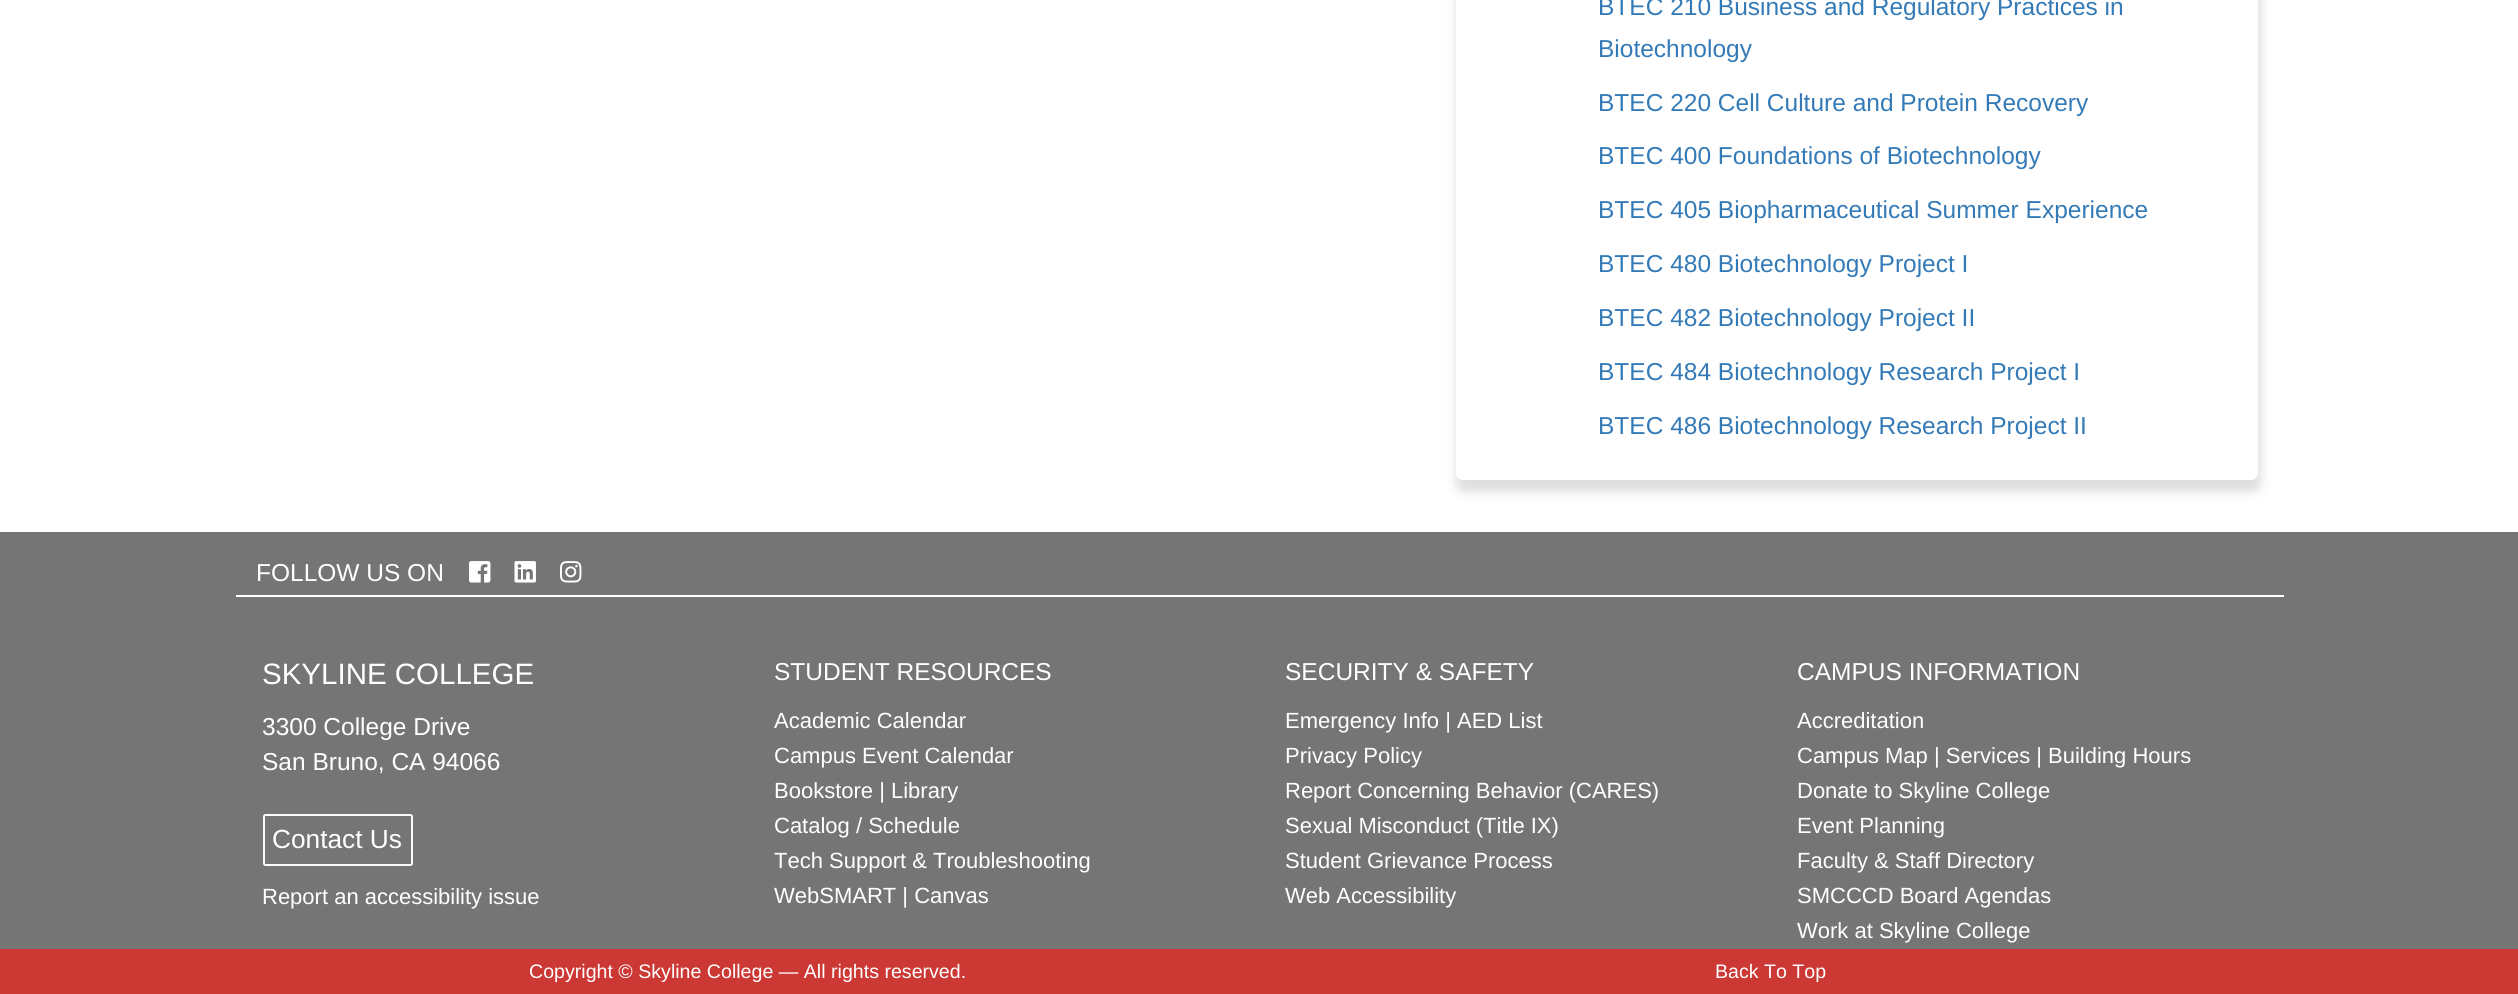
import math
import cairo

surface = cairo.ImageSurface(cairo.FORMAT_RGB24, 2518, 994)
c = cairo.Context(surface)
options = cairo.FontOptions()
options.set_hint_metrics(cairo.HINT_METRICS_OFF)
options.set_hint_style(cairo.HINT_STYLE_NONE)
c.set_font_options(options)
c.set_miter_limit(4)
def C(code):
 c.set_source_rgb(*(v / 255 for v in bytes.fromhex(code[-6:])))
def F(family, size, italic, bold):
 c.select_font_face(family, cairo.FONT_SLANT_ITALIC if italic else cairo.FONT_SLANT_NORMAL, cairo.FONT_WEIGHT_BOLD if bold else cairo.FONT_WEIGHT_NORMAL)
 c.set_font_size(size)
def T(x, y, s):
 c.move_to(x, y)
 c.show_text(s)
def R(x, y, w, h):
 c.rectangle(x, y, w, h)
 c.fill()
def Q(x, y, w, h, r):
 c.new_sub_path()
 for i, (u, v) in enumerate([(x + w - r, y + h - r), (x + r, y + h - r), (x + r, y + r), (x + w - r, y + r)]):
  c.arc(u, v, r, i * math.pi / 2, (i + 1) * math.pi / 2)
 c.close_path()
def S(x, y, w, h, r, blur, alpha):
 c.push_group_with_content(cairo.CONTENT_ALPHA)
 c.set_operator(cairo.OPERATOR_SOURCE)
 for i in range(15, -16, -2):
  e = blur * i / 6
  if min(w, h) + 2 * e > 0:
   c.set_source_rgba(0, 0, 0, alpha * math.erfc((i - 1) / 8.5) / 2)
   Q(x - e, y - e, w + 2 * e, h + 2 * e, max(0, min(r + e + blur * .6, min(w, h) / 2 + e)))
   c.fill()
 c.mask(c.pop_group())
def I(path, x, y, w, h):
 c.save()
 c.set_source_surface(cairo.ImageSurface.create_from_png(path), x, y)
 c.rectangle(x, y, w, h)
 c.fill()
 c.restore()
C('ffffff')
c.paint()
C('dedede')
S(1456,-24,805,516,9,5,1)
C('ffffff')
Q(1456,-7,802,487,7)
c.fill()
F('Liberation Sans',24.5,0,0)
C('337ab7')
T(1598,15,'BTEC 210 Business and Regulatory Practices in')
T(1598,57,'Biotechnology')
T(1598,111,'BTEC 220 Cell Culture and Protein Recovery')
T(1598,164,'BTEC 400 Foundations of Biotechnology')
T(1598,218,'BTEC 405 Biopharmaceutical Summer Experience')
T(1598,272,'BTEC 480 Biotechnology Project I')
T(1598,326,'BTEC 482 Biotechnology Project II')
T(1598,380,'BTEC 484 Biotechnology Research Project I')
T(1598,434,'BTEC 486 Biotechnology Research Project II')
C('757575')
R(0,532,2518,417)
C('ffffff')
R(236,595,2048,2)
T(256,581,'FOLLOW US ON')
I('1.png',469,561,22,22)
I('2.png',514,561,22,22)
I('3.png',560,561,22,22)
F('Liberation Sans',29.5,0,0)
T(262,684,'SKYLINE COLLEGE')
F('Liberation Sans',24.5,0,0)
T(262,735,'3300 College Drive')
T(262,770,'San Bruno, CA 94066')
Q(264,815,148,50,1.5)
C('fafafa')
c.stroke()
F('Liberation Sans',26.25,0,0)
C('ffffff')
T(272,848,'Contact Us')
F('Liberation Sans',22,0,0)
T(262,904,'Report an accessibility issue')
F('Liberation Sans',24.5,0,0)
T(774,680,'STUDENT RESOURCES')
F('Liberation Sans',22,0,0)
T(774,728,'Academic Calendar')
T(774,763,'Campus Event Calendar')
T(774,798,'Bookstore | Library')
T(774,833,'Catalog / Schedule')
T(774,868,'Tech Support & Troubleshooting')
T(774,903,'WebSMART | Canvas')
F('Liberation Sans',24.5,0,0)
T(1285,680,'SECURITY & SAFETY')
F('Liberation Sans',22,0,0)
T(1285,728,'Emergency Info | AED List')
T(1285,763,'Privacy Policy')
T(1285,798,'Report Concerning Behavior (CARES)')
T(1285,833,'Sexual Misconduct (Title IX)')
T(1285,868,'Student Grievance Process')
T(1285,903,'Web Accessibility')
F('Liberation Sans',24.5,0,0)
T(1797,680,'CAMPUS INFORMATION')
F('Liberation Sans',22,0,0)
T(1797,728,'Accreditation')
T(1797,763,'Campus Map | Services | Building Hours')
T(1797,798,'Donate to Skyline College')
T(1797,833,'Event Planning')
T(1797,868,'Faculty & Staff Directory')
T(1797,903,'SMCCCD Board Agendas')
T(1797,938,'Work at Skyline College')
C('cc3834')
R(0,949,2518,45)
F('Liberation Sans',19.6,0,0)
C('ffffff')
T(529,978,'Copyright © Skyline College — All rights reserved.')
T(1715,978,'Back To Top')
surface.write_to_png('o.png')
